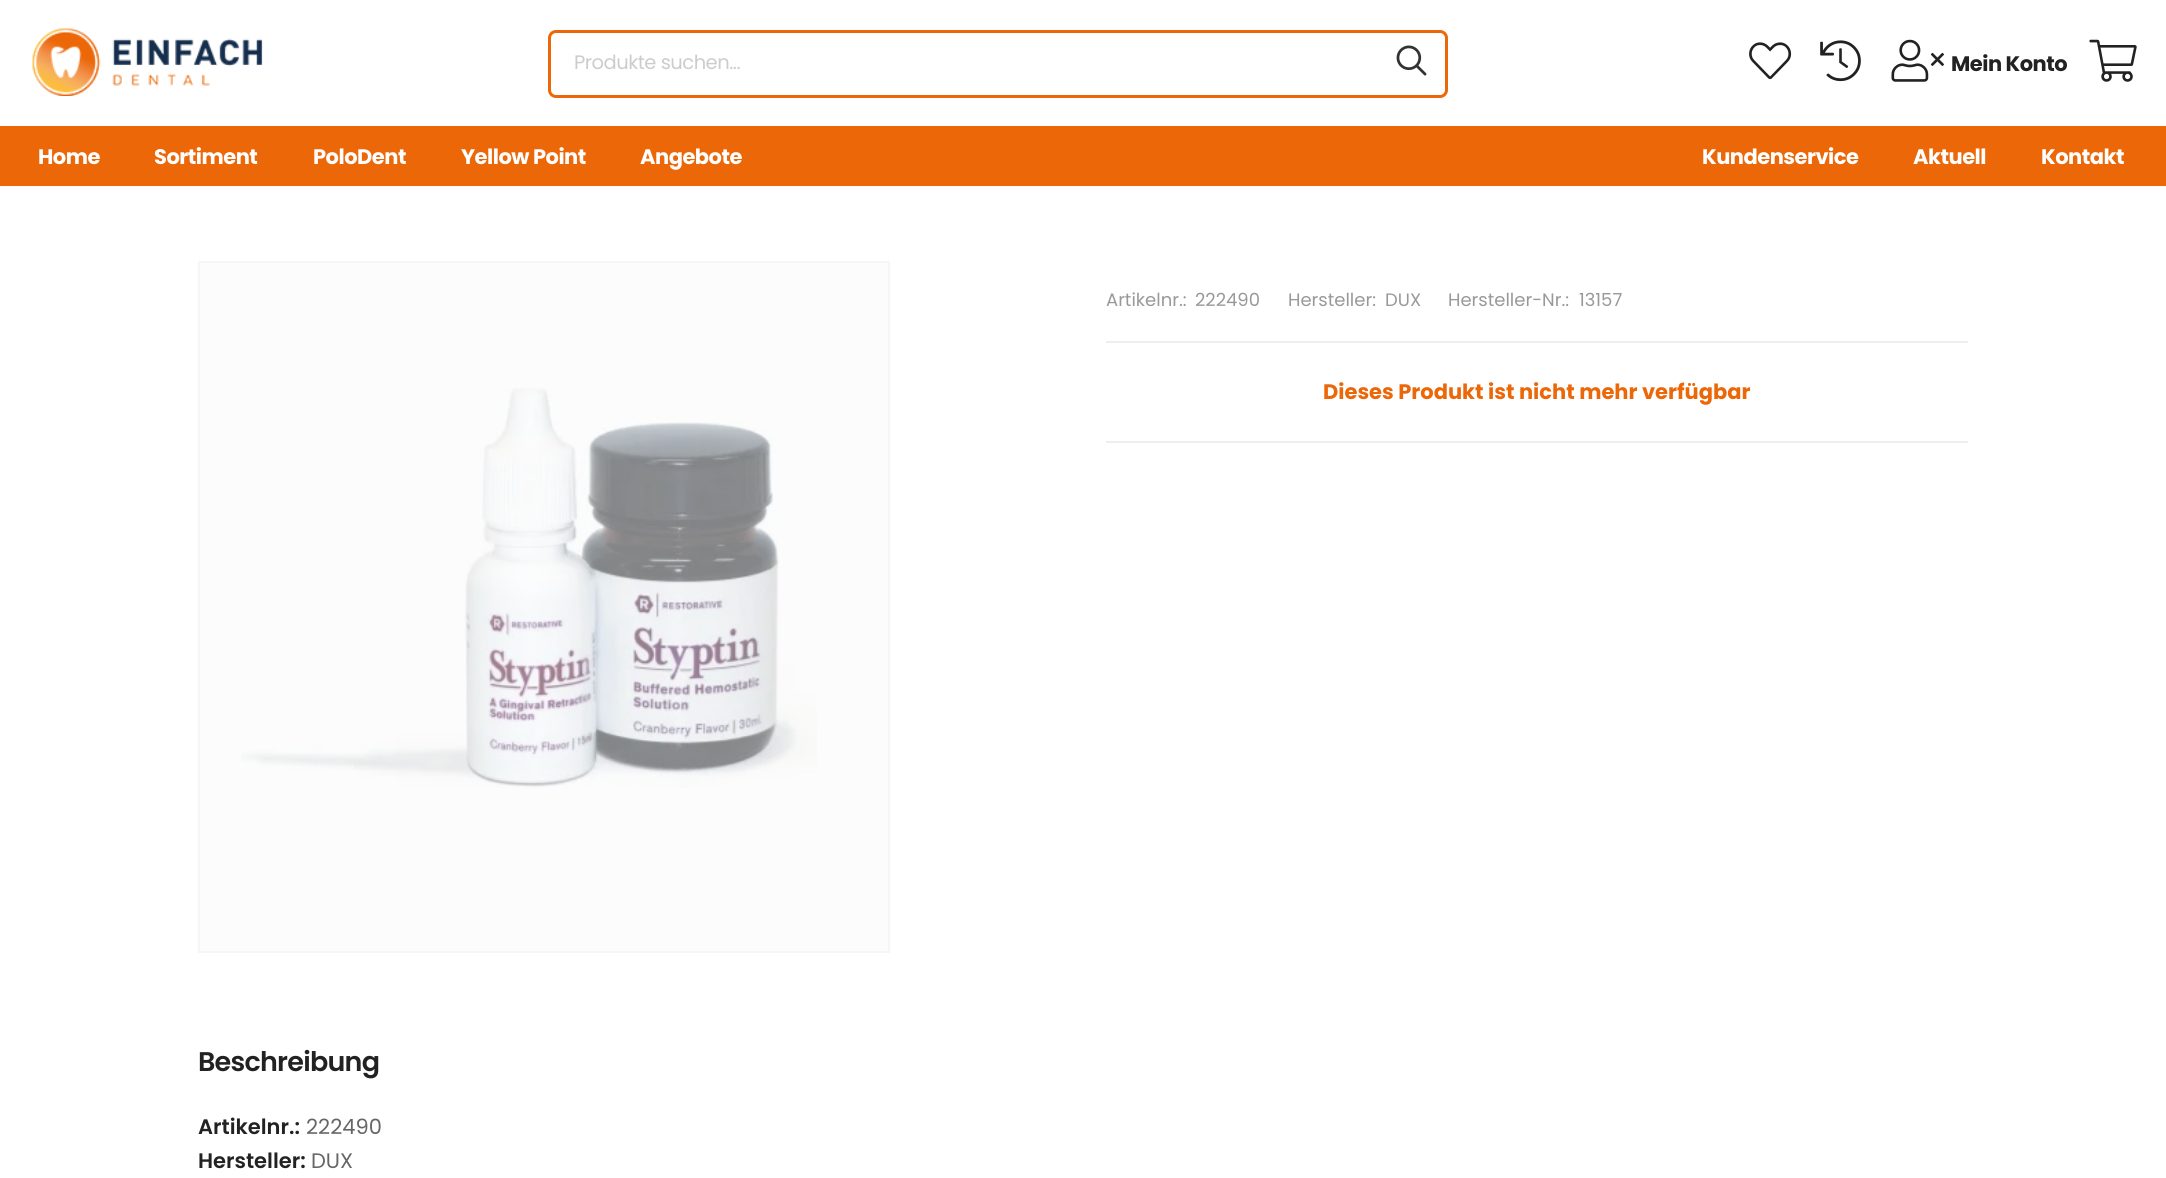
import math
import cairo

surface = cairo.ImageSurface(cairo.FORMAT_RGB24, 2166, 1178)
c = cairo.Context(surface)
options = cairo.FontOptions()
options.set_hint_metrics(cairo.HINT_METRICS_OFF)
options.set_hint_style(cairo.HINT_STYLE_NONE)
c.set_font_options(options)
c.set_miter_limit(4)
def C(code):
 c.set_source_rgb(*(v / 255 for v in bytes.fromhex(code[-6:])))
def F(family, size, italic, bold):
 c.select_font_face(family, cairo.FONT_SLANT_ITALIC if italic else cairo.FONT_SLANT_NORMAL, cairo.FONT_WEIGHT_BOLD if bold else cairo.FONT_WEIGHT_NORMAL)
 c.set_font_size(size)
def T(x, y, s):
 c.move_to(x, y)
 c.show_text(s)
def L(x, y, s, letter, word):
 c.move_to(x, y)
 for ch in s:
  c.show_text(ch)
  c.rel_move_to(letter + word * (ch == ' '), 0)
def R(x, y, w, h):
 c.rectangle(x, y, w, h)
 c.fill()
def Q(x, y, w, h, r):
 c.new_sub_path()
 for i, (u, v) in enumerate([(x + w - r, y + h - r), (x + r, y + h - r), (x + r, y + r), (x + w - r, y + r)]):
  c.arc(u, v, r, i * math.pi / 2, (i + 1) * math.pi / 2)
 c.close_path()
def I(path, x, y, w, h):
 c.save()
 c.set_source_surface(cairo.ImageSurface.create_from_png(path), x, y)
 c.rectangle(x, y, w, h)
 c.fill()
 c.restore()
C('ffffff')
c.paint()
I('1.png',32,28,231,68)
Q(549.5,31.5,897,65,6.5)
C('ec6707')
c.set_line_width(3)
c.stroke()
F('Poppins',19.5,0,0)
C('cccccc')
L(574,69,'Produkte suchen...',-.5,0)
I('2.png',1396,45,31,31)
I('3.png',1749,42,43,38)
I('4.png',1820,40,41,42)
I('5.png',1891,39,53,43)
F('Poppins',21,0,1)
C('222222')
L(1951,71,'Mein Konto',-.5,0)
I('6.png',2089,39,48,43)
C('ec6707')
R(0,126,2166,60)
C('ffffff')
L(38,164,'Home',-.5,0)
L(154,164,'Sortiment',-.5,0)
L(313,164,'PoloDent',-.5,0)
L(461,164,'Yellow Point',-.5,0)
L(640,164,'Angebote',-.5,0)
L(1702,164,'Kundenservice',-.5,0)
L(1913,164,'Aktuell',-.5,0)
L(2041,164,'Kontakt',-.5,0)
C('fcfcfc')
c.rectangle(199,262,690,690)
c.fill_preserve()
C('f6f6f6')
c.set_line_width(2)
c.stroke()
I('7.png',241,388,576,400)
F('Poppins',18,0,0)
C('999999')
T(1106,306,'Artikelnr.:')
T(1195,306,'222490')
T(1288,306,'Hersteller:')
T(1385,306,'DUX')
T(1448,306,'Hersteller-Nr.:')
T(1579,306,'13157')
C('eeeeee')
R(1106,341,862,2)
F('Poppins',21,0,1)
C('ec6707')
T(1323,399,'Dieses Produkt ist nicht mehr verfügbar')
C('eeeeee')
R(1106,441,862,2)
F('Poppins SemiBold',27,0,0)
C('222222')
L(198,1071,'Beschreibung',-.75,0)
F('Poppins SemiBold',21,0,0)
T(198,1134,'Artikelnr.:')
F('Poppins',21,0,0)
C('666666')
T(306,1134,'222490')
F('Poppins SemiBold',21,0,0)
C('222222')
T(198,1168,'Hersteller:')
F('Poppins',21,0,0)
C('666666')
T(311,1168,'DUX')
surface.write_to_png('o.png')
